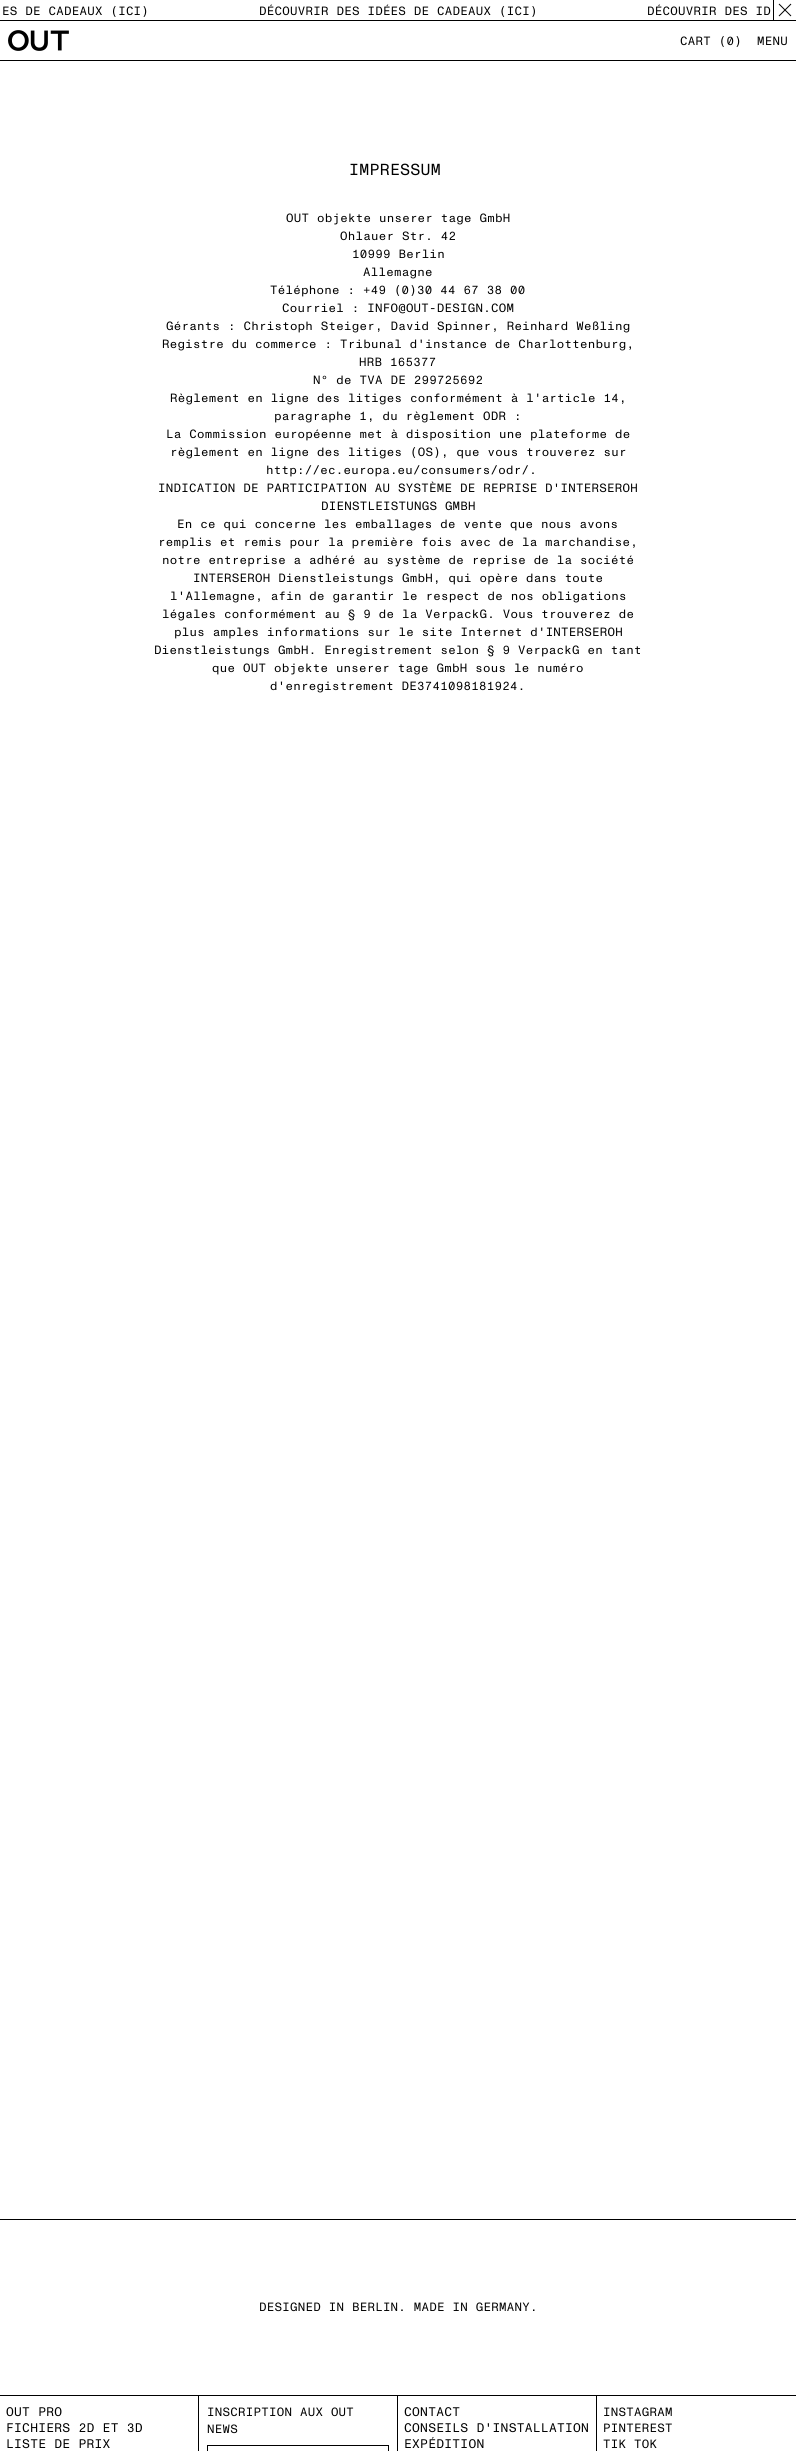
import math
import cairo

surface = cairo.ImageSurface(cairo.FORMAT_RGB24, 796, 2451)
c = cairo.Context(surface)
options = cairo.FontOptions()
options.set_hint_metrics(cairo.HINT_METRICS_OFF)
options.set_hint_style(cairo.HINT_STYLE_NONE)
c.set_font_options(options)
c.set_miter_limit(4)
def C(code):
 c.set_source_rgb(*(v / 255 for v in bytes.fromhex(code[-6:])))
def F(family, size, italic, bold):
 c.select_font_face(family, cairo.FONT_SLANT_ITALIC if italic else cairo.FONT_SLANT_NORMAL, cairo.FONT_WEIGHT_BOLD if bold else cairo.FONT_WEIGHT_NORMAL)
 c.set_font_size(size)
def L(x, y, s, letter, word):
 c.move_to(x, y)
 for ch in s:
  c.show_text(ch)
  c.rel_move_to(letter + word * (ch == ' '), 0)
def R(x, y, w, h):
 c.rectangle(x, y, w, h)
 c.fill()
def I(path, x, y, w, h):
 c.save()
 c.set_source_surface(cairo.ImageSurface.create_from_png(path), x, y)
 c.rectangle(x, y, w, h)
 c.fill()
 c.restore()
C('ffffff')
c.paint()
C('000000')
R(0,20,796,1)
F('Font',12,0,0)
L(2,15,'ES DE CADEAUX (ICI)',.3,0)
L(259,15,'DÉCOUVRIR DES IDÉES DE CADEAUX (ICI)',.3,0)
L(647,15,'DÉCOUVRIR DES ID',.3,0)
R(773,0,1,20)
I('1.png',778,3,14,14)
R(0,60,796,1)
I('2.png',8,30,61,21)
L(680,45,'CART (0)',.3,0)
L(757,45,'MENU',.3,0)
F('Font',16,0,0)
L(349,175,'IMPRESSUM',.3,0)
F('Font',12,0,0)
L(286,222,'OUT objekte unserer tage GmbH',.3,0)
L(340,240,'Ohlauer Str. 42',.3,0)
L(352,258,'10999 Berlin',.3,0)
L(363,276,'Allemagne',.3,0)
L(270,294,'Téléphone : +49 (0)30 44 67 38 00',.3,0)
L(282,312,'Courriel : INFO@OUT-DESIGN.COM',.3,0)
L(166,330,'Gérants : Christoph Steiger, David Spinner, Reinhard Weßling',.3,0)
L(162,348,'Registre du commerce : Tribunal d\'instance de Charlottenburg,',.3,0)
L(359,366,'HRB 165377',.3,0)
L(313,384,'N° de TVA DE 299725692',.3,0)
L(170,402,'Règlement en ligne des litiges conformément à l\'article 14,',.3,0)
L(274,420,'paragraphe 1, du règlement ODR :',.3,0)
L(166,438,'La Commission européenne met à disposition une plateforme de',.3,0)
L(170,456,'règlement en ligne des litiges (OS), que vous trouverez sur',.3,0)
L(266,474,'http://ec.europa.eu/consumers/odr/.',.3,0)
L(158,492,'INDICATION DE PARTICIPATION AU SYSTÈME DE REPRISE D\'INTERSEROH',.3,0)
L(321,510,'DIENSTLEISTUNGS GMBH',.3,0)
L(177,528,'En ce qui concerne les emballages de vente que nous avons',.3,0)
L(158,546,'remplis et remis pour la première fois avec de la marchandise,',.3,0)
L(162,564,'notre entreprise a adhéré au système de reprise de la société',.3,0)
L(193,582,'INTERSEROH Dienstleistungs GmbH, qui opère dans toute',.3,0)
L(170,600,'l\'Allemagne, afin de garantir le respect de nos obligations',.3,0)
L(162,618,'légales conformément au § 9 de la VerpackG. Vous trouverez de',.3,0)
L(174,636,'plus amples informations sur le site Internet d\'INTERSEROH',.3,0)
L(154,654,'Dienstleistungs GmbH. Enregistrement selon § 9 VerpackG en tant',.3,0)
L(212,672,'que OUT objekte unserer tage GmbH sous le numéro',.3,0)
L(270,690,'d\'enregistrement DE3741098181924.',.3,0)
R(0,2219,796,1)
R(0,2395,796,1)
L(259,2311,'DESIGNED IN BERLIN. MADE IN GERMANY.',.3,0)
R(198,2396,1,55)
F('Font',12.5,0,0)
L(6,2416,'OUT PRO',.3,0)
L(6,2432,'FICHIERS 2D ET 3D',.3,0)
L(6,2448,'LISTE DE PRIX',.3,0)
R(397,2396,1,55)
F('Font',12,0,0)
L(207,2416,'INSCRIPTION AUX OUT',.3,0)
L(207,2433,'NEWS',.3,0)
c.rectangle(207.5,2445.5,181,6)
c.set_line_width(1)
c.stroke()
R(596,2396,1,55)
F('Font',12.5,0,0)
L(404,2416,'CONTACT',.3,0)
L(404,2432,'CONSEILS D\'INSTALLATION',.3,0)
L(404,2448,'EXPÉDITION',.3,0)
F('Font',12,0,0)
L(603,2416,'INSTAGRAM',.3,0)
L(603,2432,'PINTEREST',.3,0)
L(603,2448,'TIK TOK',.3,0)
surface.write_to_png('o.png')
